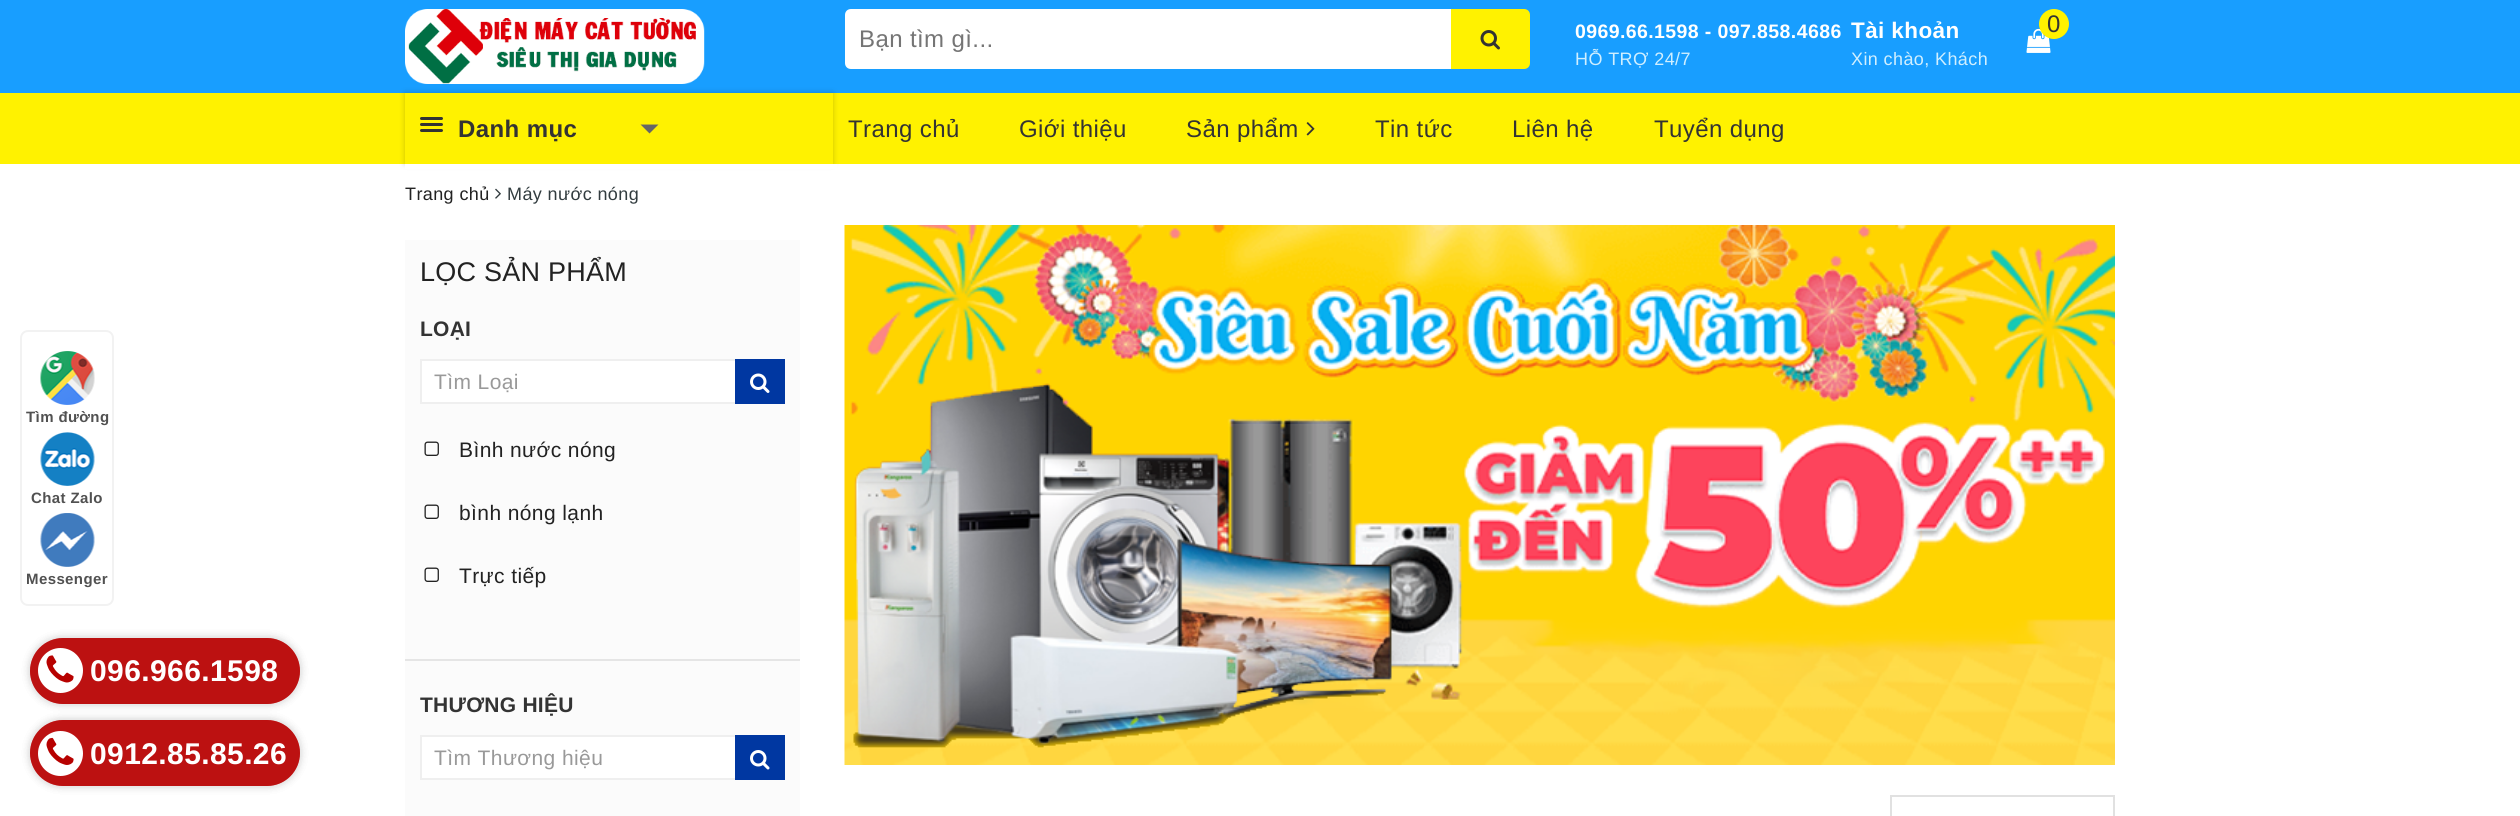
import math
import cairo

surface = cairo.ImageSurface(cairo.FORMAT_RGB24, 2520, 816)
c = cairo.Context(surface)
options = cairo.FontOptions()
options.set_hint_metrics(cairo.HINT_METRICS_OFF)
options.set_hint_style(cairo.HINT_STYLE_NONE)
c.set_font_options(options)
c.set_miter_limit(4)
def C(code):
 c.set_source_rgb(*(v / 255 for v in bytes.fromhex(code[-6:])))
def F(family, size, italic, bold):
 c.select_font_face(family, cairo.FONT_SLANT_ITALIC if italic else cairo.FONT_SLANT_NORMAL, cairo.FONT_WEIGHT_BOLD if bold else cairo.FONT_WEIGHT_NORMAL)
 c.set_font_size(size)
def L(x, y, s, letter, word):
 c.move_to(x, y)
 for ch in s:
  c.show_text(ch)
  c.rel_move_to(letter + word * (ch == ' '), 0)
def R(x, y, w, h):
 c.rectangle(x, y, w, h)
 c.fill()
def Q(x, y, w, h, r):
 c.new_sub_path()
 for i, (u, v) in enumerate([(x + w - r, y + h - r), (x + r, y + h - r), (x + r, y + r), (x + w - r, y + r)]):
  c.arc(u, v, r, i * math.pi / 2, (i + 1) * math.pi / 2)
 c.close_path()
def S(x, y, w, h, r, blur, alpha):
 c.push_group_with_content(cairo.CONTENT_ALPHA)
 c.set_operator(cairo.OPERATOR_SOURCE)
 for i in range(15, -16, -2):
  e = blur * i / 6
  if min(w, h) + 2 * e > 0:
   c.set_source_rgba(0, 0, 0, alpha * math.erfc((i - 1) / 8.5) / 2)
   Q(x - e, y - e, w + 2 * e, h + 2 * e, max(0, min(r + e + blur * .6, min(w, h) / 2 + e)))
   c.fill()
 c.mask(c.pop_group())
def I(path, x, y, w, h):
 c.save()
 c.set_source_surface(cairo.ImageSurface.create_from_png(path), x, y)
 c.rectangle(x, y, w, h)
 c.fill()
 c.restore()
C('ffffff')
c.paint()
Q(21,331,92,274,7)
C('f2f2f2')
c.stroke()
I('1.png',40,351,55,54)
F('Liberation Sans',15,0,1)
C('515151')
L(26,422,'Tìm đường',.4,0)
I('2.png',40,432,55,54)
L(31,503,'Chat Zalo',.4,0)
I('3.png',40,513,55,54)
L(26,584,'Messenger',.4,0)
C('189eff')
R(0,0,2520,93)
I('4.png',405,9,300,75)
C('ffffff')
c.new_path()
c.move_to(851,9)
c.line_to(1452,9)
c.line_to(1452,69)
c.line_to(851,69)
c.curve_to(847.5,69,845,66.5,845,63)
c.line_to(845,15)
c.curve_to(845,11.5,847.5,9,851,9)
c.close_path()
c.fill()
F('Liberation Sans',24,0,0)
C('757575')
L(859,47,'Bạn tìm gì...',.4,0)
C('fff200')
c.new_path()
c.move_to(1451,9)
c.line_to(1524,9)
c.curve_to(1527.5,9,1530,11.5,1530,15)
c.line_to(1530,63)
c.curve_to(1530,66.5,1527.5,69,1524,69)
c.line_to(1451,69)
c.close_path()
c.fill()
I('5.png',1480,30,20,20)
F('Liberation Sans',19.5,0,1)
C('ffffff')
L(1575,38,'0969.66.1598 - 097.858.4686',.4,0)
F('Liberation Sans',18,0,0)
C('d0efff')
L(1575,65,'HỖ TRỢ 24/7',.4,0)
F('Liberation Sans',22.5,0,1)
C('ffffff')
L(1851,38,'Tài khoản',.4,0)
F('Liberation Sans',18,0,0)
C('d0efff')
L(1851,65,'Xin chào, Khách',.4,0)
I('6.png',2026,28,25,25)
C('fff200')
c.arc(2054,24,15,0,2 * math.pi)
c.fill()
F('Liberation Sans',24,0,0)
C('333333')
L(2047,32,'0',.4,0)
C('fff200')
R(0,93,2520,71)
C('000000')
S(405,93,428,71,0,3,.2)
C('fff200')
R(405,93,428,71)
C('333333')
Q(420,117,23,3,1.5)
c.fill()
Q(420,123,23,3,1.5)
c.fill()
Q(420,129,23,3,1.5)
c.fill()
F('Liberation Sans',24,0,1)
L(458,137,'Danh mục',.4,0)
C('666666')
c.new_path()
c.move_to(640.5,124.5)
c.line_to(658.5,124.5)
c.line_to(649.5,133.5)
c.close_path()
c.fill()
F('Liberation Sans',24,0,0)
C('333333')
L(848,137,'Trang chủ',.4,0)
L(1019,137,'Giới thiệu',.4,0)
L(1186,137,'Sản phẩm',.4,0)
I('7.png',1306,122,9,14)
L(1375,137,'Tin tức',.4,0)
L(1512,137,'Liên hệ',.4,0)
L(1654,137,'Tuyển dụng',.4,0)
C('ffffff')
R(405,164,432,5)
F('Liberation Sans',18,0,0)
C('222222')
L(405,200,'Trang chủ',.4,0)
I('8.png',495,188,6,11)
C('323c3f')
L(507,200,'Máy nước nóng',.4,0)
c.save()
c.set_fill_rule(cairo.FILL_RULE_EVEN_ODD)
c.new_path()
c.move_to(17,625)
c.line_to(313,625)
c.line_to(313,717)
c.line_to(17,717)
c.close_path()
c.move_to(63,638)
c.line_to(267,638)
c.curve_to(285,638,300,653,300,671)
c.curve_to(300,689,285,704,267,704)
c.line_to(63,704)
c.curve_to(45,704,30,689,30,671)
c.curve_to(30,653,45,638,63,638)
c.close_path()
c.clip()
C('dddddd')
S(30,638,270,66,33,4,1)
c.restore()
c.set_source_rgba(0.718,0.004,0,0.74)
Q(30,638,270,66,33)
c.fill()
C('fbfbfb')
R(405,240,395,576)
F('Liberation Sans',27,0,0)
C('222222')
L(420,281,'LỌC SẢN PHẨM',.25,0)
F('Liberation Sans',21,0,1)
C('333333')
L(420,336,'LOẠI',.25,0)
C('e5e5e5')
R(405,659,395,2)
C('ffffff')
c.rectangle(421,360,315,43)
c.fill_preserve()
C('efefef')
c.stroke()
F('Liberation Sans',21,0,0)
C('999999')
L(434,389,'Tìm Loại',.4,0)
C('0037a1')
R(735,359,50,45)
I('9.png',750,373,20,20)
I('10.png',424,441,15,15)
C('222222')
L(459,457,'Bình nước nóng',.4,0)
I('10.png',424,504,15,15)
L(459,520,'bình nóng lạnh',.4,0)
I('10.png',424,567,15,15)
L(459,583,'Trực tiếp',.4,0)
F('Liberation Sans',21,0,1)
C('333333')
L(420,712,'THƯƠNG HIỆU',.25,0)
C('ffffff')
c.rectangle(421,736,315,43)
c.fill_preserve()
C('efefef')
c.stroke()
F('Liberation Sans',21,0,0)
C('999999')
L(434,765,'Tìm Thương hiệu',.4,0)
C('0037a1')
R(735,735,50,45)
I('11.png',750,750,20,20)
I('12.png',844,225,1271,540)
c.rectangle(1891,796,223,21)
C('e1e1e1')
c.stroke()
c.save()
c.set_fill_rule(cairo.FILL_RULE_EVEN_ODD)
c.new_path()
c.move_to(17,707)
c.line_to(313,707)
c.line_to(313,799)
c.line_to(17,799)
c.close_path()
c.move_to(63,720)
c.line_to(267,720)
c.curve_to(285,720,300,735,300,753)
c.curve_to(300,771,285,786,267,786)
c.line_to(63,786)
c.curve_to(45,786,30,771,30,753)
c.curve_to(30,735,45,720,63,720)
c.close_path()
c.clip()
C('dddddd')
S(30,720,270,66,33,4,1)
c.restore()
c.set_source_rgba(0.718,0.004,0,0.74)
Q(30,720,270,66,33)
c.fill()
c.save()
c.set_fill_rule(cairo.FILL_RULE_EVEN_ODD)
c.new_path()
c.move_to(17,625)
c.line_to(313,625)
c.line_to(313,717)
c.line_to(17,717)
c.close_path()
c.move_to(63,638)
c.line_to(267,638)
c.curve_to(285,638,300,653,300,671)
c.curve_to(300,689,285,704,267,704)
c.line_to(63,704)
c.curve_to(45,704,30,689,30,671)
c.curve_to(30,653,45,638,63,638)
c.close_path()
c.clip()
C('dddddd')
S(30,638,270,66,33,4,1)
c.restore()
Q(30,638,270,66,33)
c.fill()
C('ffffff')
c.arc(60.5,670.5,22.5,0,2 * math.pi)
c.fill()
I('13.png',46,655,28,28)
F('Liberation Sans',30,0,1)
L(90,681,'096.966.1598',.4,0)
c.save()
c.set_fill_rule(cairo.FILL_RULE_EVEN_ODD)
c.new_path()
c.move_to(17,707)
c.line_to(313,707)
c.line_to(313,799)
c.line_to(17,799)
c.close_path()
c.move_to(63,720)
c.line_to(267,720)
c.curve_to(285,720,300,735,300,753)
c.curve_to(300,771,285,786,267,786)
c.line_to(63,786)
c.curve_to(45,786,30,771,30,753)
c.curve_to(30,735,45,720,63,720)
c.close_path()
c.clip()
C('dddddd')
S(30,720,270,66,33,4,1)
c.restore()
c.set_source_rgba(0.718,0.004,0,0.74)
Q(30,720,270,66,33)
c.fill()
C('ffffff')
c.arc(60.5,753.5,22.5,0,2 * math.pi)
c.fill()
I('14.png',46,737,28,28)
L(90,764,'0912.85.85.26',.4,0)
surface.write_to_png('o.png')
